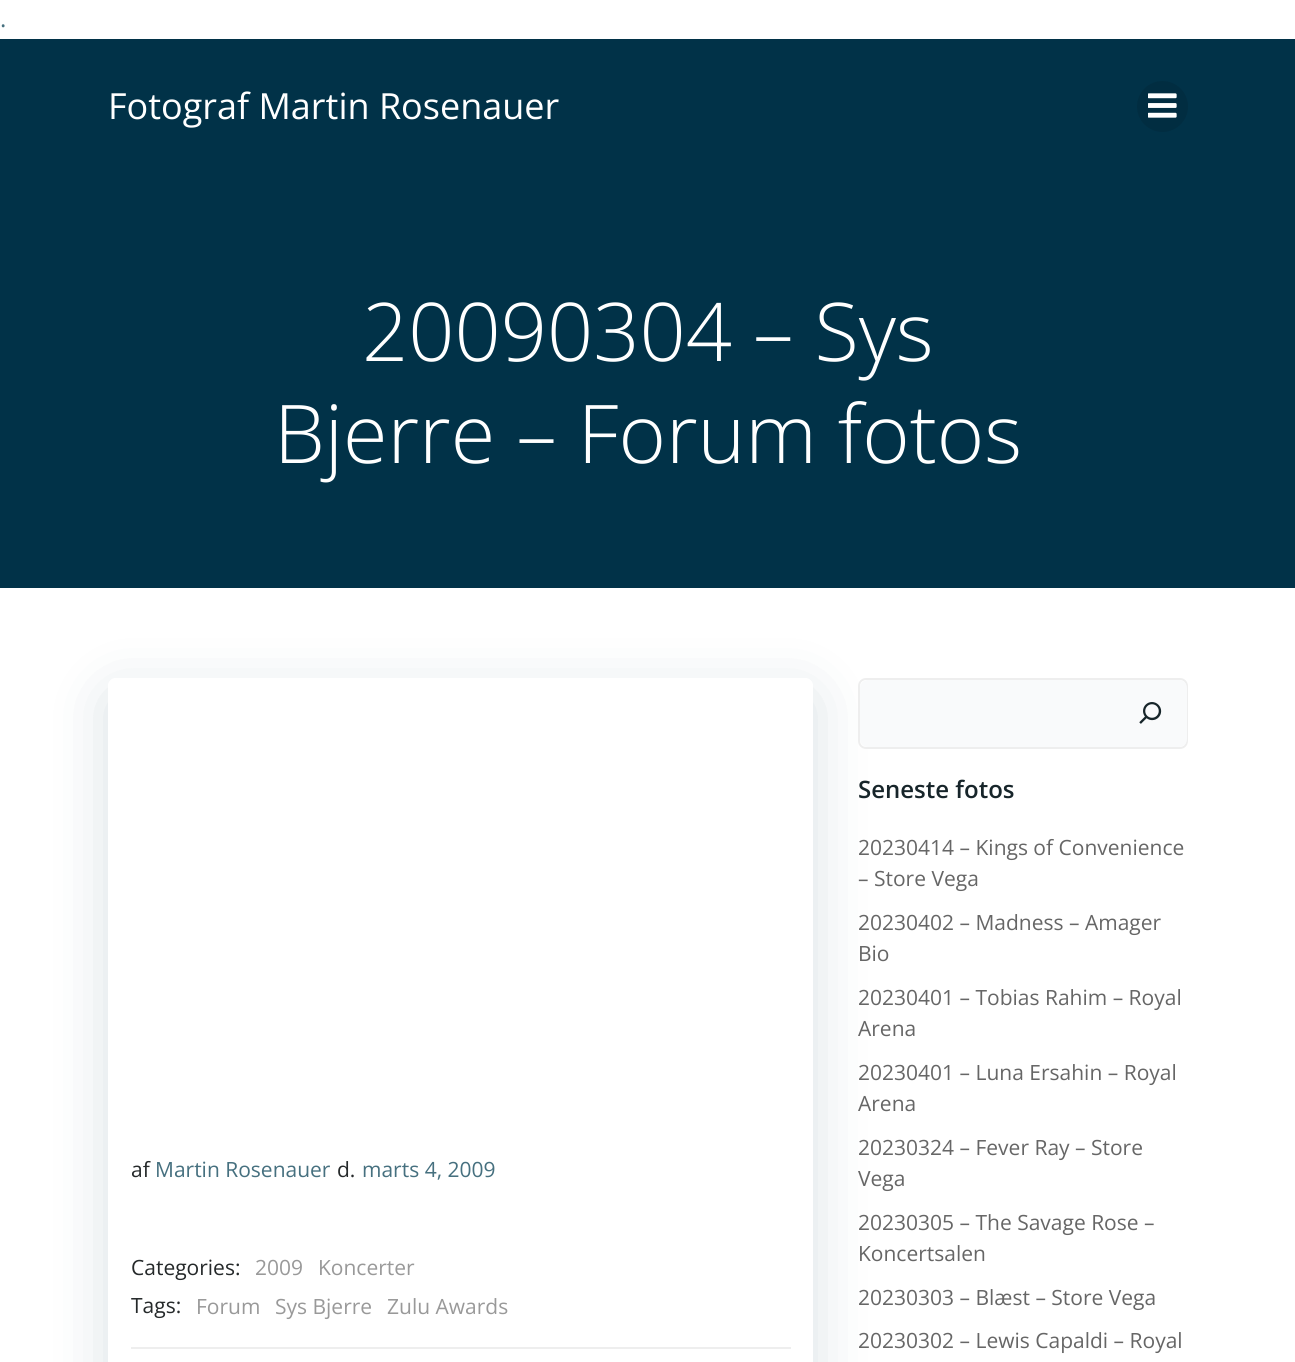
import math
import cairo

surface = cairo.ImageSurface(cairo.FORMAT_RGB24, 1295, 1362)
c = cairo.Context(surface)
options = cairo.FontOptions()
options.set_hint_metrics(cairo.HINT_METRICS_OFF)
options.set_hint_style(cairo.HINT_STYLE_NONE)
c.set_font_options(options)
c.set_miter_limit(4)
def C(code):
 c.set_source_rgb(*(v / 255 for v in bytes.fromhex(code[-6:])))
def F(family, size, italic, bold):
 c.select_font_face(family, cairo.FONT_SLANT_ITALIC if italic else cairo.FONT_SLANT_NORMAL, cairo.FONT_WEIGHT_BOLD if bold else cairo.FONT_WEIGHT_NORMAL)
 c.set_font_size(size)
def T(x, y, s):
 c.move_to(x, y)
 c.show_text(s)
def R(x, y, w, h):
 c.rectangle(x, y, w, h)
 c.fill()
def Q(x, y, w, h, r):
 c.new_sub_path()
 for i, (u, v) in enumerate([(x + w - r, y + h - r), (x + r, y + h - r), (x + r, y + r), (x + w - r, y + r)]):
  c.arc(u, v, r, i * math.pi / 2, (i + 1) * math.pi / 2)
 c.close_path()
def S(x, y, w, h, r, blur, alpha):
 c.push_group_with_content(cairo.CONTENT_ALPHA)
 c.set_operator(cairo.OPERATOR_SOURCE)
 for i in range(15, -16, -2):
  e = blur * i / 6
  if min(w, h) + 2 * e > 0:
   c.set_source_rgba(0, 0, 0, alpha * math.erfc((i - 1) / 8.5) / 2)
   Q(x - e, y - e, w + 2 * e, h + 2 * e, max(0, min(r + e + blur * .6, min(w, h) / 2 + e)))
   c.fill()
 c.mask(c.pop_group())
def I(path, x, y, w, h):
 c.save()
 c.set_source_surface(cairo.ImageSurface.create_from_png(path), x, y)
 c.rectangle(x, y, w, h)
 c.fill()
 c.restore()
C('ffffff')
c.paint()
F('Open Sans',24,0,0)
C('46707f')
T(0,27,'.')
C('013248')
R(0,39,1295,549)
F('Open Sans',36,0,0)
C('ffffff')
T(108,119,'Fotograf Martin Rosenauer')
C('012d41')
c.new_path()
c.arc(1162.5,106.5,25.5,0,2 * math.pi)
c.fill()
I('1.png',1148,93,29,25)
F('Open Sans Light',81,0,0)
C('ffffff')
T(362,361,'20090304 – Sys')
T(274,463,'Bjerre – Forum fotos')
c.save()
c.set_fill_rule(cairo.FILL_RULE_EVEN_ODD)
c.new_path()
c.move_to(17,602)
c.line_to(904,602)
c.line_to(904,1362)
c.line_to(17,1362)
c.close_path()
c.move_to(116,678)
c.line_to(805,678)
c.curve_to(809.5,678,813,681.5,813,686)
c.line_to(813,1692)
c.curve_to(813,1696.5,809.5,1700,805,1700)
c.line_to(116,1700)
c.curve_to(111.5,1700,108,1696.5,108,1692)
c.line_to(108,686)
c.curve_to(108,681.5,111.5,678,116,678)
c.close_path()
c.clip()
C('01334a')
S(108,693,705,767,8,30,.15)
c.restore()
F('Open Sans',21,0,0)
C('25292a')
T(131,1177,'af')
C('46707f')
T(155,1177,'Martin Rosenauer')
C('25292a')
T(337,1177,'d.')
C('46707f')
T(362,1177,'marts 4, 2009')
C('25292a')
T(131,1275,'Categories:')
C('999999')
T(255,1275,'2009')
T(318,1275,'Koncerter')
C('25292a')
T(131,1313,'Tags:')
C('999999')
T(196,1314,'Forum')
T(275,1314,'Sys Bjerre')
T(387,1314,'Zulu Awards')
C('eeeeee')
R(131,1347,660,2)
Q(859,679,328,69,7)
c.stroke()
C('f9fafb')
c.new_path()
c.move_to(868,680)
c.line_to(1115,680)
c.line_to(1115,747)
c.line_to(868,747)
c.curve_to(863.5,747,860,743.5,860,739)
c.line_to(860,688)
c.curve_to(860,683.5,863.5,680,868,680)
c.close_path()
c.fill()
c.new_path()
c.move_to(1115,680)
c.line_to(1179,680)
c.curve_to(1183.5,680,1187,683.5,1187,688)
c.line_to(1187,739)
c.curve_to(1187,743.5,1183.5,747,1179,747)
c.line_to(1115,747)
c.close_path()
c.fill()
I('2.png',1139,702,23,22)
F('Open Sans SemiBold',24,0,0)
C('17252a')
T(858,798,'Seneste fotos')
F('Open Sans',21,0,0)
C('666666')
T(858,855,'20230414 – Kings of Convenience')
T(858,886,'– Store Vega')
T(858,930,'20230402 – Madness – Amager')
T(858,961,'Bio')
T(858,1005,'20230401 – Tobias Rahim – Royal')
T(858,1036,'Arena')
T(858,1080,'20230401 – Luna Ersahin – Royal')
T(858,1111,'Arena')
T(858,1155,'20230324 – Fever Ray – Store')
T(858,1186,'Vega')
T(858,1230,'20230305 – The Savage Rose –')
T(858,1261,'Koncertsalen')
T(858,1305,'20230303 – Blæst – Store Vega')
T(858,1348,'20230302 – Lewis Capaldi – Royal')
surface.write_to_png('o.png')
